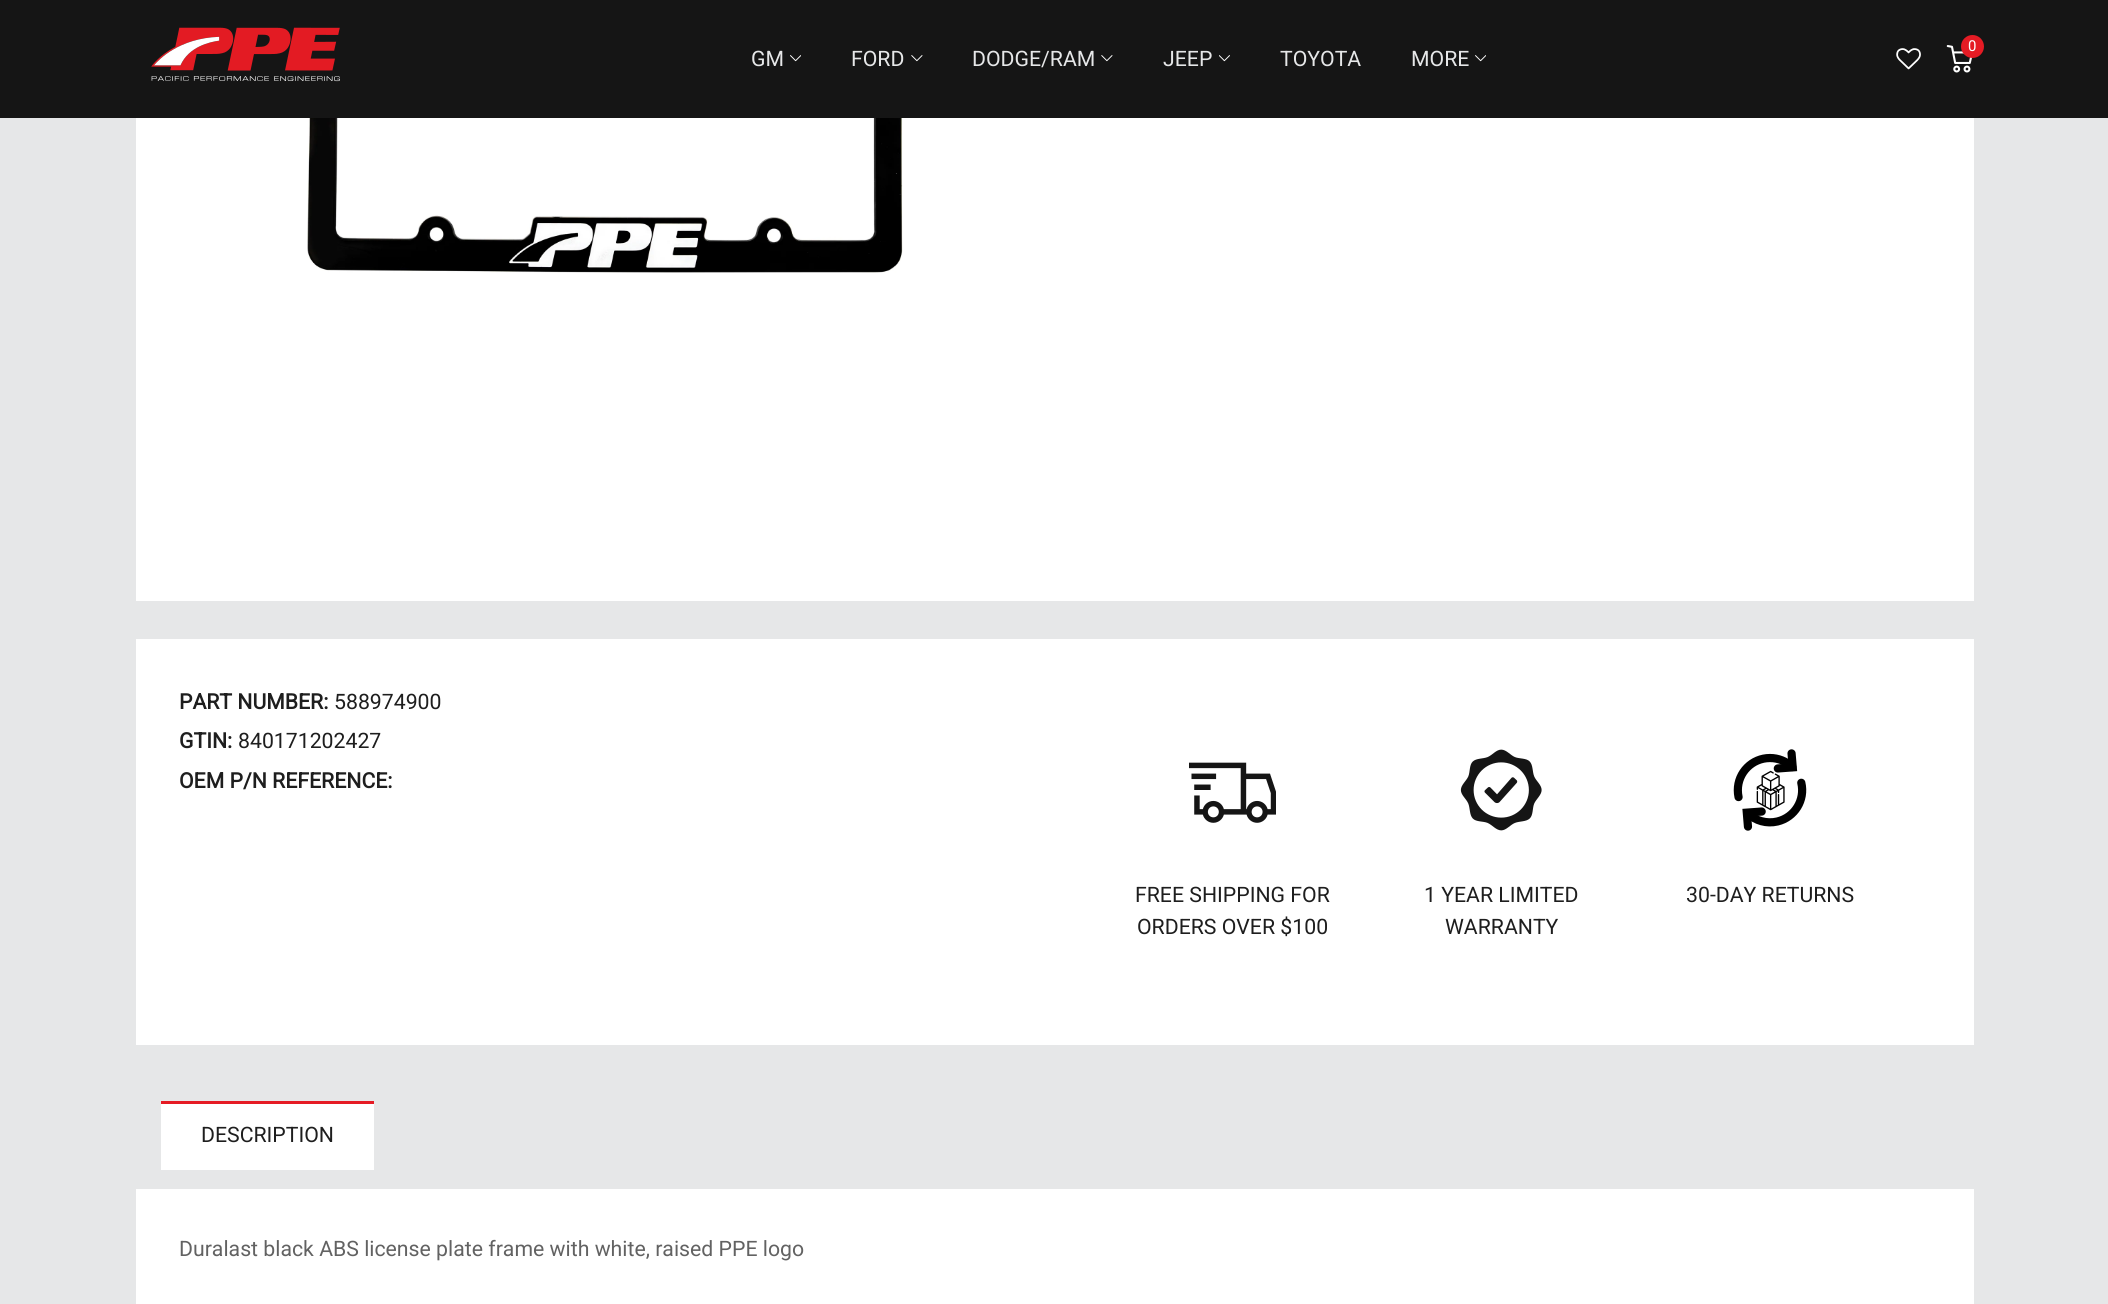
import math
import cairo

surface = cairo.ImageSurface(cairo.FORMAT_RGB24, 2108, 1304)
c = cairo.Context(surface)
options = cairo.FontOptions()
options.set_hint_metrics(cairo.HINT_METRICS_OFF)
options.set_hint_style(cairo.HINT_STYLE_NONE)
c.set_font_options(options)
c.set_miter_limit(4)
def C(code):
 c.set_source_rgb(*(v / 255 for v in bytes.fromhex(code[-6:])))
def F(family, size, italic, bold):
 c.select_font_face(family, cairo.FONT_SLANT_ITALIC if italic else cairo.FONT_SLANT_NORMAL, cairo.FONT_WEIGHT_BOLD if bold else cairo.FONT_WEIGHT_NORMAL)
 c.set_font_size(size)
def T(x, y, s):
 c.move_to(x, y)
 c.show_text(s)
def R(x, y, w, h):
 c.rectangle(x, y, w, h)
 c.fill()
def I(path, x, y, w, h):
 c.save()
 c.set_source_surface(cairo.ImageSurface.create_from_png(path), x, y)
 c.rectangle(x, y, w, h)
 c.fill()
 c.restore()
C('e6e7e8')
c.paint()
C('151515')
R(0,0,2108,118)
I('1.png',151,27,189,55)
I('2.png',1946,45,27,28)
C('e51b24')
c.arc(1972.5,46.5,11.5,0,2 * math.pi)
c.fill()
F('Roboto',15,0,0)
C('ffffff')
T(1968,51,'0')
I('3.png',1896,48,25,22)
F('Roboto',21.25,0,0)
C('e6e7e8')
T(751,66,'GM')
I('4.png',790,55,11,7)
T(851,66,'FORD')
I('5.png',911,55,12,7)
T(972,66,'DODGE/RAM')
I('5.png',1101,55,12,7)
T(1163,66,'JEEP')
I('6.png',1219,55,11,7)
T(1280,66,'TOYOTA')
T(1411,66,'MORE')
I('4.png',1475,55,11,7)
C('ffffff')
R(136,118,1838,483)
I('7.png',307,118,596,155)
R(136,639,1838,406)
F('Roboto',21.25,0,1)
C('1e1e1e')
T(179,709,'PART NUMBER:')
F('Roboto',21.25,0,0)
T(334,709,'588974900')
F('Roboto',21.25,0,1)
T(179,748,'GTIN:')
F('Roboto',21.25,0,0)
T(238,748,'840171202427')
F('Roboto',21.25,0,1)
T(179,788,'OEM P/N REFERENCE:')
I('8.png',1189,762,87,61)
F('Roboto',21.25,0,0)
T(1135,902,'FREE SHIPPING FOR')
T(1137,934,'ORDERS OVER $100')
I('9.png',1460,749,82,82)
T(1424,902,'1 YEAR LIMITED')
T(1445,934,'WARRANTY')
I('10.png',1733,749,74,82)
T(1686,902,'30-DAY RETURNS')
C('ffffff')
R(161,1104,213,66)
C('e51b24')
R(161,1101,213,3)
C('1e1e1e')
T(201,1142,'DESCRIPTION')
C('ffffff')
R(136,1189,1838,115)
C('626262')
T(179,1256,'Duralast black ABS license plate frame with white, raised PPE logo')
surface.write_to_png('o.png')
